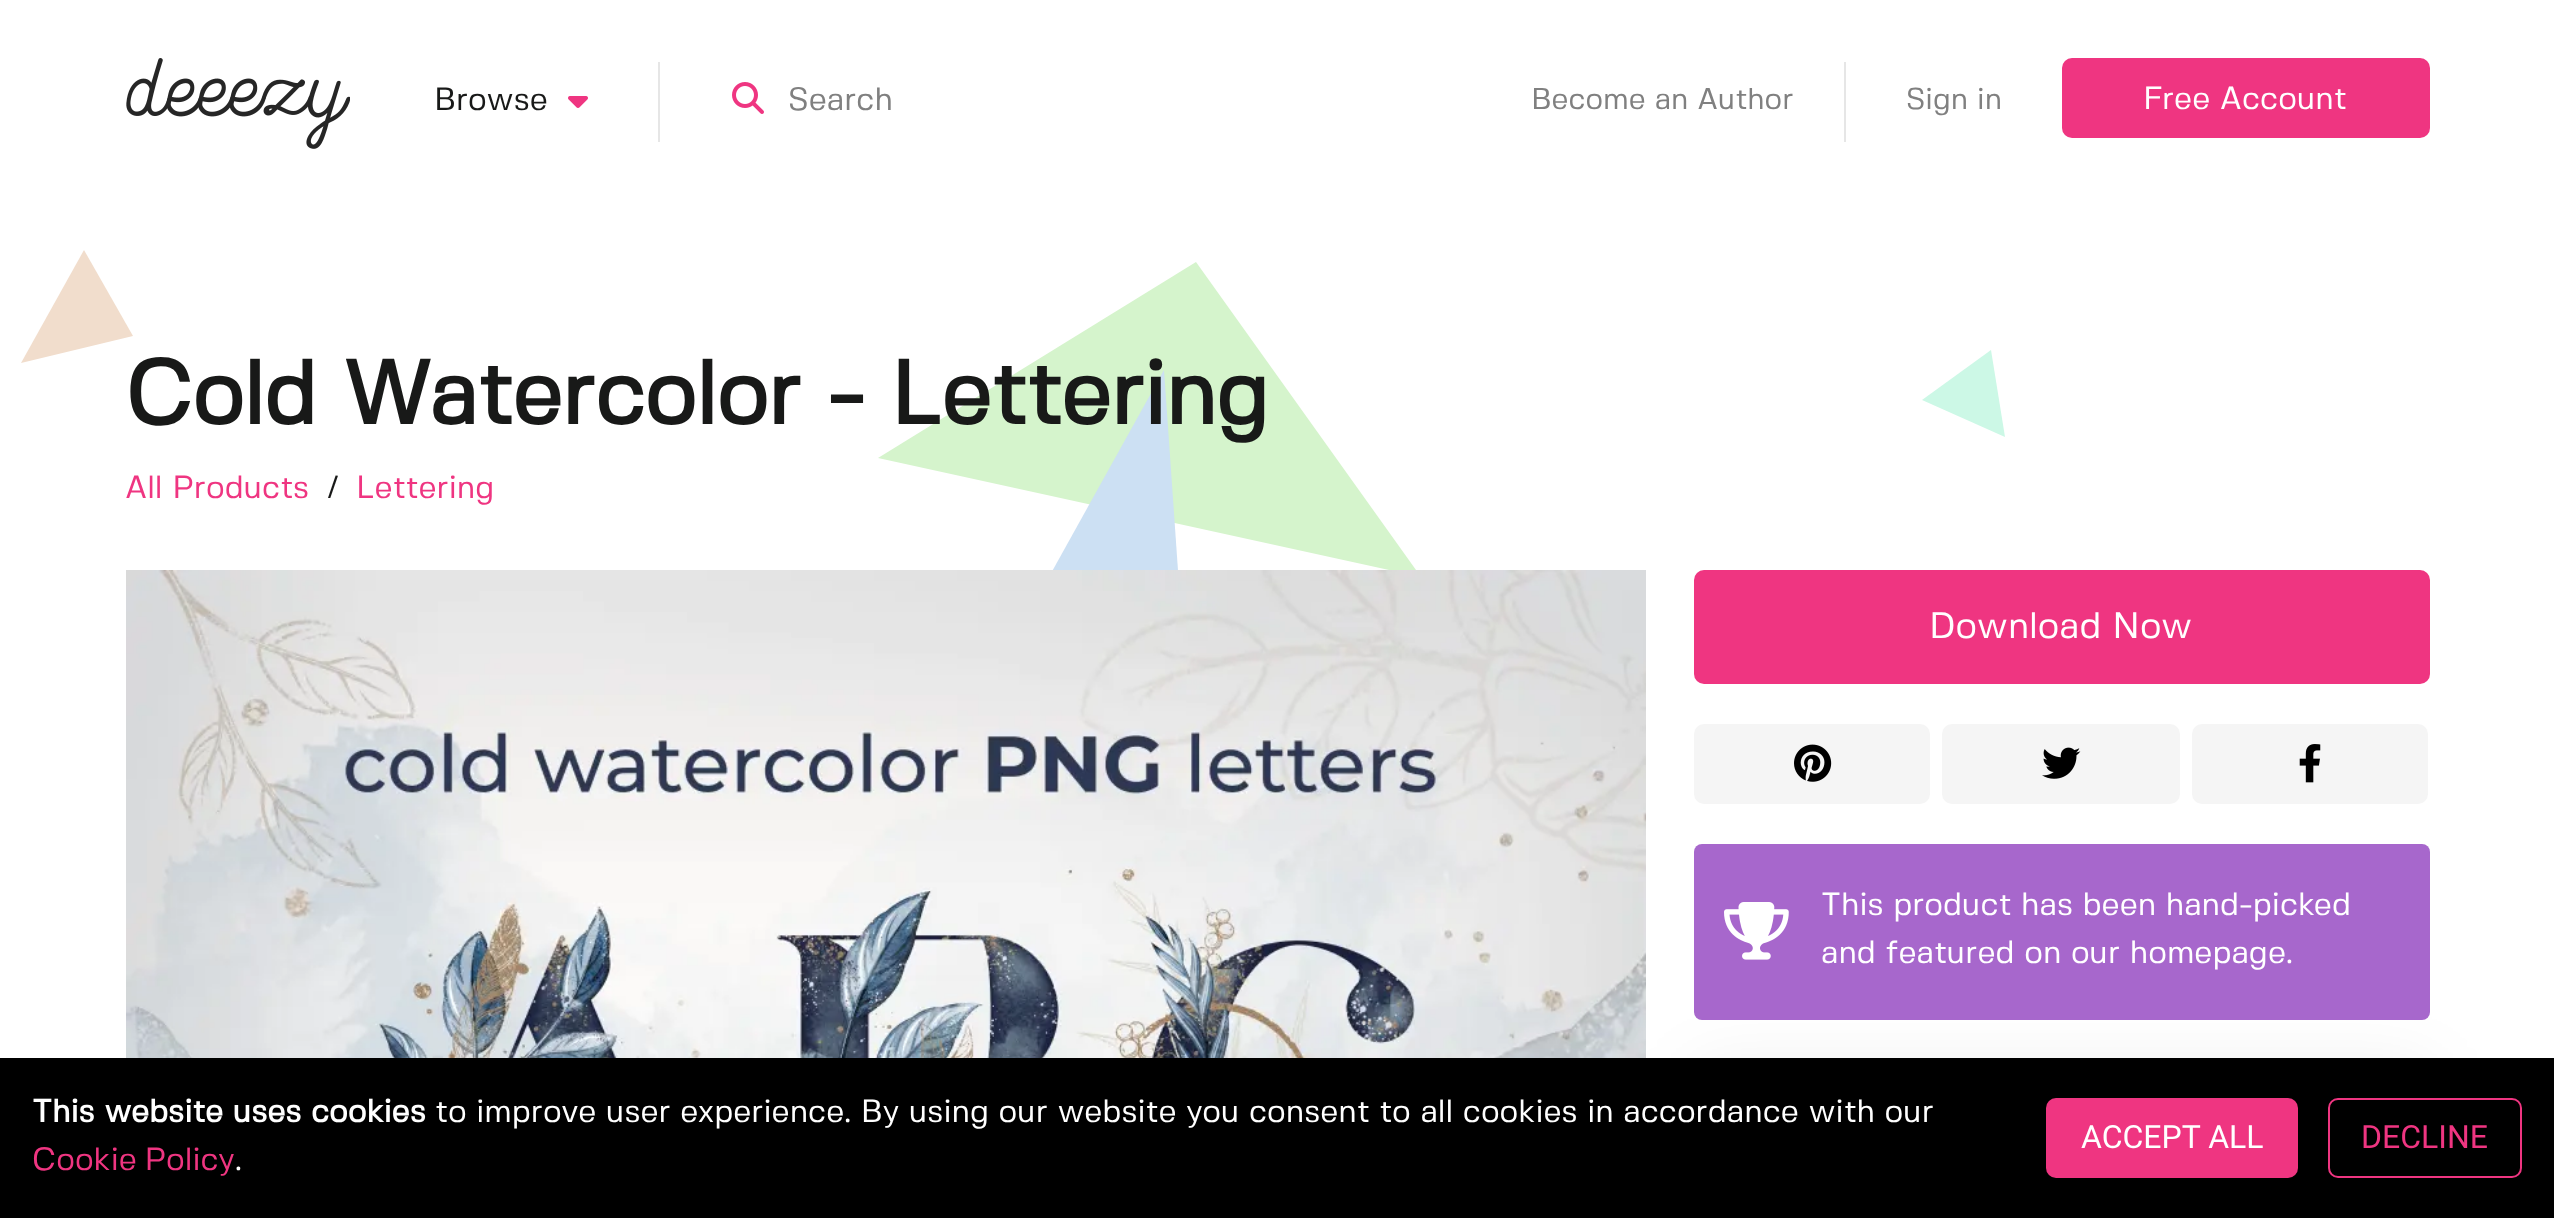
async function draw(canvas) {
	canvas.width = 2554;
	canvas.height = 1218;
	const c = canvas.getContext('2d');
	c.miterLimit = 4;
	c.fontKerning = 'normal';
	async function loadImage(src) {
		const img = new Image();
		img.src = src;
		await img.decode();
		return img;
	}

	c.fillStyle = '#fff';
	c.fillRect(0, 0, 2554, 1218);
	c.drawImage(await loadImage('img1.png'), 126, 58, 224, 91);
	c.font = '32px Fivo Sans';
	c.fillStyle = '#181918';
	c.fillText('Browse', 434, 110);
	c.drawImage(await loadImage('img2.png'), 568, 96, 20, 12);
	c.fillStyle = '#e6e6e6';
	c.fillRect(658, 62, 2, 80);
	c.drawImage(await loadImage('img3.png'), 732, 82, 32, 32);
	c.fillStyle = '#808080';
	c.fillText('Search', 788, 110);
	c.font = '30px Fivo Sans';
	c.fillText('Become an Author', 1531, 109);
	c.fillStyle = '#e6e6e6';
	c.fillRect(1844, 62, 2, 80);
	c.fillStyle = '#808080';
	c.fillText('Sign in', 1906, 109);
	c.fillStyle = '#ef3581';
	c.beginPath();
	c.roundRect(2062, 58, 368, 80, 10);
	c.fill();
	c.font = '32px Fivo Sans';
	c.fillStyle = '#fff';
	c.fillText('Free Account', 2143, 109);
	c.fillStyle = '#f1ddcc';
	c.beginPath();
	c.moveTo(21, 363);
	c.lineTo(84, 250);
	c.lineTo(133, 336);
	c.closePath();
	c.fill();
	c.fillStyle = '#d5f4cc';
	c.beginPath();
	c.moveTo(1421, 577);
	c.lineTo(878, 458);
	c.lineTo(1196, 262);
	c.closePath();
	c.fill();
	c.fillStyle = '#cce0f3';
	c.beginPath();
	c.moveTo(995, 674);
	c.lineTo(1164, 370);
	c.lineTo(1179, 585);
	c.closePath();
	c.fill();
	c.letterSpacing = '-1px';
	c.font = 'bold 89.6px Fivo Sans';
	c.fillStyle = '#181918';
	c.fillText('Cold Watercolor - Lettering', 125, 424);
	c.letterSpacing = '0px';
	c.font = '32px Fivo Sans';
	c.fillStyle = '#ef3581';
	c.fillText('All Products', 125, 498);
	c.fillStyle = '#181918';
	c.fillText('/', 327, 498);
	c.fillStyle = '#ef3581';
	c.fillText('Lettering', 356, 498);
	c.fillStyle = '#0a0a0a12';
	c.filter = 'blur(35px)';
	c.beginPath();
	c.roundRect(1694, 1070, 736, 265, 12);
	c.fill();
	c.filter = 'none';
	c.drawImage(await loadImage('img4.png'), 126, 570, 1520, 488);
	c.fillStyle = '#ef3581';
	c.beginPath();
	c.roundRect(1694, 570, 736, 114, 10);
	c.fill();
	c.font = '36.75px Fivo Sans';
	c.fillStyle = '#fff';
	c.fillText('Download Now', 1929, 638);
	c.fillStyle = '#f5f5f5';
	c.beginPath();
	c.roundRect(1694, 724, 236, 80, 10);
	c.fill();
	c.drawImage(await loadImage('img5.png'), 1794, 744, 38, 38);
	c.beginPath();
	c.roundRect(1942, 724, 238, 80, 10);
	c.fill();
	c.drawImage(await loadImage('img6.png'), 2042, 747, 39, 32);
	c.beginPath();
	c.roundRect(2192, 724, 236, 80, 10);
	c.fill();
	c.drawImage(await loadImage('img7.png'), 2299, 744, 22, 39);
	c.fillStyle = '#a767cc';
	c.beginPath();
	c.roundRect(1694, 844, 736, 176, 8);
	c.fill();
	c.drawImage(await loadImage('img8.png'), 1724, 902, 65, 58);
	c.font = '32px Fivo Sans';
	c.fillStyle = '#fff';
	c.fillText('This product has been hand-picked', 1821, 915);
	c.fillText('and featured on our homepage.', 1821, 963);
	c.fillStyle = '#000';
	c.fillRect(0, 1058, 2554, 160);
	c.font = 'bold 32px Fivo Sans';
	c.fillStyle = '#fff';
	c.fillText('This website uses cookies', 32, 1122);
	c.font = '32px Fivo Sans';
	c.fillText('to improve user experience. By using our website you consent to all cookies in accordance with our', 435, 1122);
	c.wordSpacing = '-2px';
	c.fillStyle = '#ef3581';
	c.fillText('Cookie Policy', 32, 1170);
	c.wordSpacing = '0px';
	c.fillStyle = '#fff';
	c.fillText('.', 235, 1170);
	c.fillStyle = '#ef3581';
	c.beginPath();
	c.roundRect(2046, 1098, 252, 80, 10);
	c.fill();
	c.font = '32px Roboto';
	c.fillStyle = '#fff';
	c.fillText('ACCEPT ALL', 2081, 1148);
	c.beginPath();
	c.roundRect(2329, 1099, 192, 78, 9);
	c.strokeStyle = '#ef3581';
	c.lineWidth = 2;
	c.stroke();
	c.fillStyle = '#ef3581';
	c.fillText('DECLINE', 2361, 1148);
	c.fillStyle = '#ccf8e6';
	c.beginPath();
	c.moveTo(2005, 437);
	c.lineTo(1922, 400);
	c.lineTo(1991, 350);
	c.closePath();
	c.fill();
}

draw(document.querySelector('canvas'));
